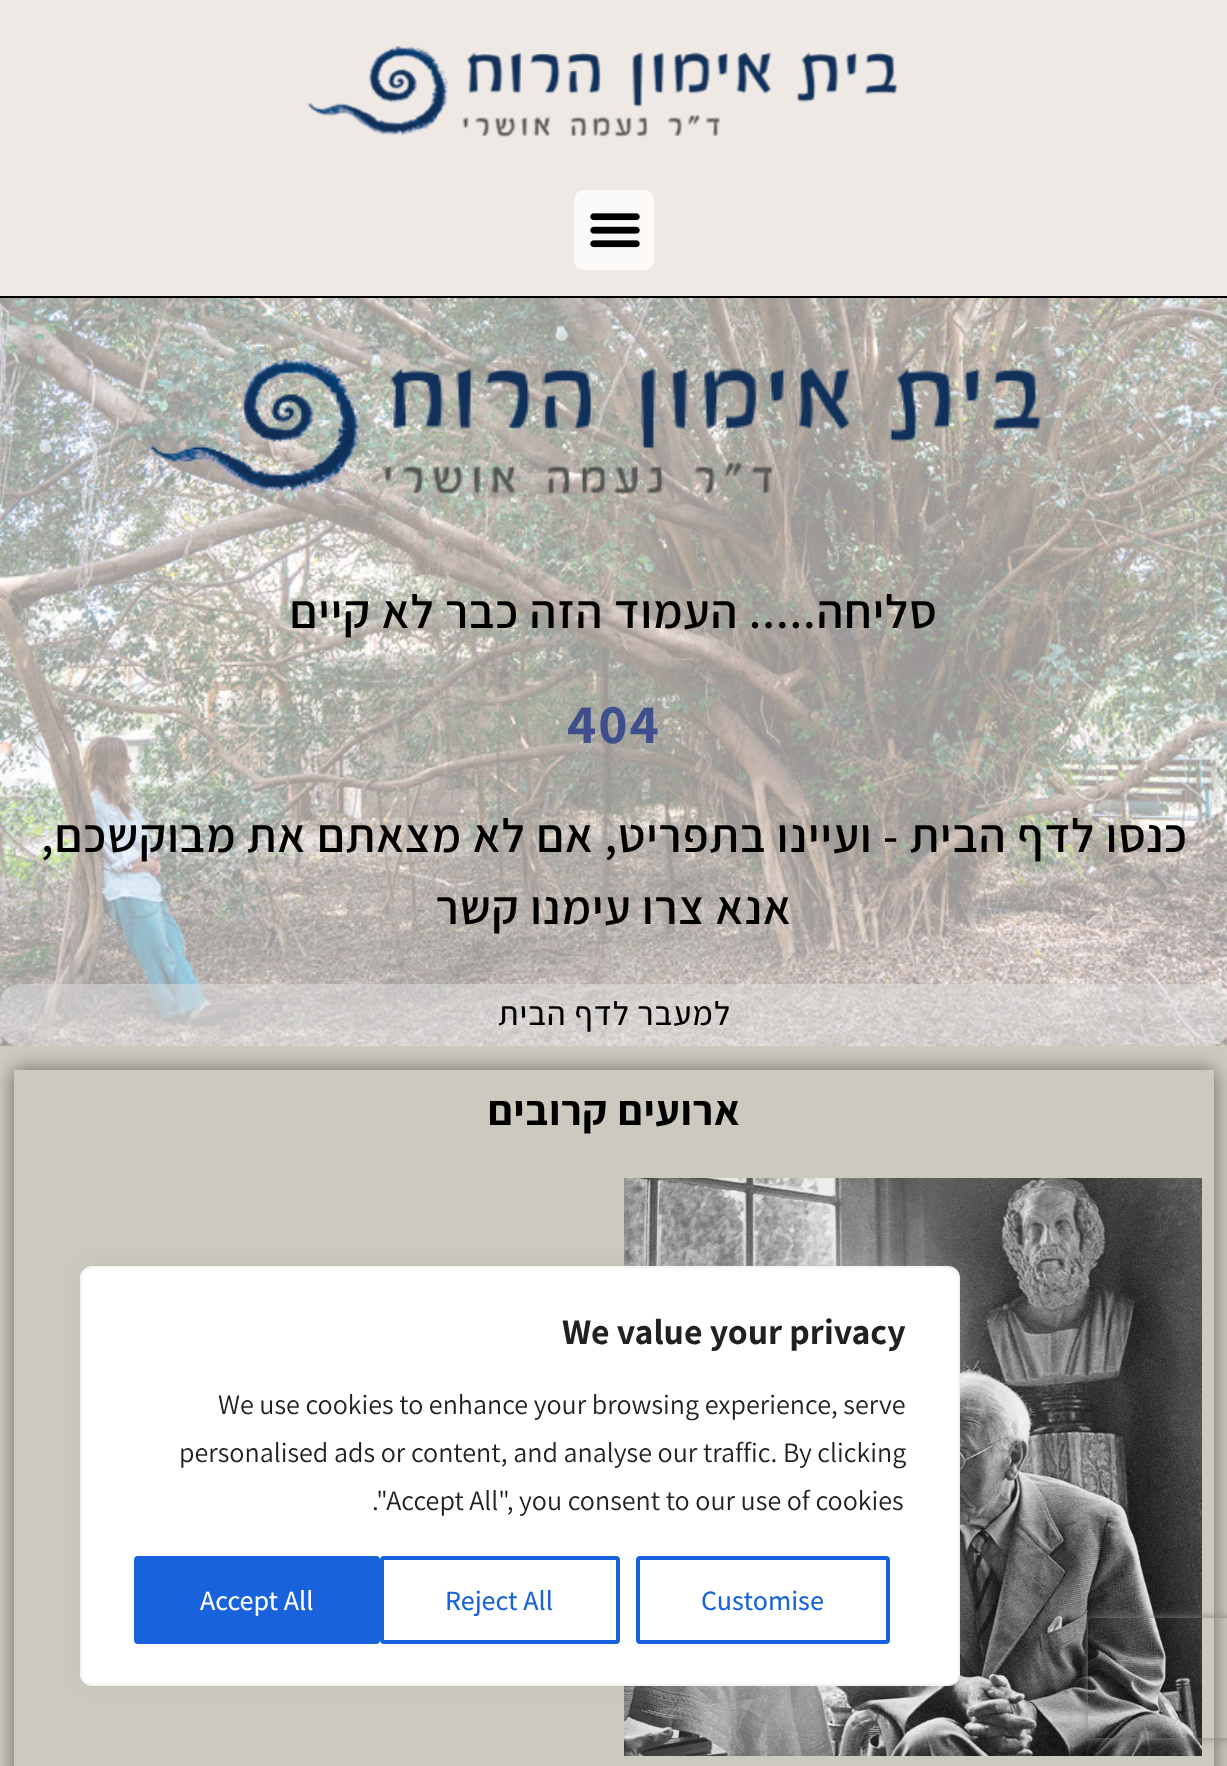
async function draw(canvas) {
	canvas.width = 1227;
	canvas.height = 1766;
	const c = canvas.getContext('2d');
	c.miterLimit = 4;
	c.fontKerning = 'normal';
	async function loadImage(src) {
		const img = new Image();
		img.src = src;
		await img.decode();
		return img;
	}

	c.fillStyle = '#fff';
	c.fillRect(0, 0, 1227, 1766);
	c.fillStyle = '#eee9e4';
	c.fillRect(0, 0, 1227, 296);
	c.fillStyle = '#000';
	c.fillRect(0, 296, 1227, 2);
	c.drawImage(await loadImage('img1.png'), 307, 45, 591, 93);
	c.fillStyle = '#fbfaf9';
	c.beginPath();
	c.roundRect(574, 190, 80, 80, 10);
	c.fill();
	c.drawImage(await loadImage('img2.png'), 590, 213, 50, 35);
	c.drawImage(await loadImage('img3.png'), 0, 298, 1227, 748);
	c.drawImage(await loadImage('img4.png'), 149, 356, 893, 139);
	c.letterSpacing = '1px';
	c.direction = 'rtl';
	c.font = '600 47.6px Assistant';
	c.fillStyle = '#000';
	c.fillText('סליחה..... העמוד הזה כבר לא קיים', 938, 628);
	c.letterSpacing = '2px';
	c.direction = 'ltr';
	c.font = 'bold 56px Assistant';
	c.fillStyle = '#3f4e8d';
	c.fillText('404', 567, 743);
	c.letterSpacing = '1px';
	c.direction = 'rtl';
	c.font = '600 47.6px Assistant';
	c.fillStyle = '#000';
	c.fillText('כנסו לדף הבית - ועיינו בתפריט, אם לא מצאתם את מבוקשכם,', 1188, 852);
	c.fillText('אנא צרו עימנו קשר', 792, 924);
	c.fillStyle = '#dddddd8c';
	c.beginPath();
	c.roundRect(0, 984, 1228, 62, 20);
	c.fill();
	c.font = '500 33.5px Assistant';
	c.fillStyle = '#000';
	c.fillText('למעבר לדף הבית', 731, 1025);
	c.fillStyle = '#ccc9bf';
	c.fillRect(0, 1046, 1227, 720);
	c.save();
	c.beginPath();
	c.moveTo(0, 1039);
	c.lineTo(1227, 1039);
	c.lineTo(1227, 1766);
	c.lineTo(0, 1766);
	c.closePath();
	c.moveTo(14, 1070);
	c.lineTo(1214, 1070);
	c.lineTo(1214, 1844);
	c.lineTo(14, 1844);
	c.closePath();
	c.clip('evenodd');
	c.fillStyle = '#00000080';
	c.filter = 'blur(10px)';
	c.beginPath();
	c.rect(14, 1070, 1200, 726);
	c.fill();
	c.filter = 'none';
	c.restore();
	c.font = 'bold 42px Assistant';
	c.fillStyle = '#000';
	c.fillText('ארועים קרובים', 741, 1125);
	c.drawImage(await loadImage('img5.png'), 624, 1178, 578, 578);
	c.save();
	c.beginPath();
	c.moveTo(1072, 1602);
	c.lineTo(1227, 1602);
	c.lineTo(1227, 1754);
	c.lineTo(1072, 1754);
	c.closePath();
	c.moveTo(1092, 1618);
	c.lineTo(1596, 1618);
	c.bezierCurveTo(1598, 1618, 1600, 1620, 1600, 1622);
	c.lineTo(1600, 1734);
	c.bezierCurveTo(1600, 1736, 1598, 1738, 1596, 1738);
	c.lineTo(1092, 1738);
	c.bezierCurveTo(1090, 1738, 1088, 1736, 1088, 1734);
	c.lineTo(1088, 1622);
	c.bezierCurveTo(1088, 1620, 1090, 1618, 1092, 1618);
	c.closePath();
	c.clip('evenodd');
	c.fillStyle = '#808080';
	c.filter = 'blur(5px)';
	c.beginPath();
	c.roundRect(1088, 1618, 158, 120, 4);
	c.fill();
	c.filter = 'none';
	c.restore();
	c.fillStyle = '#acabab4d';
	c.filter = 'blur(10px)';
	c.beginPath();
	c.roundRect(80, 1264, 880, 420, 12);
	c.fill();
	c.filter = 'none';
	c.fillStyle = '#fff';
	c.beginPath();
	c.roundRect(81, 1267, 878, 418, 11);
	c.fill();
	c.strokeStyle = '#f4f4f4';
	c.lineWidth = 2;
	c.stroke();
	c.letterSpacing = '0px';
	c.direction = 'ltr';
	c.font = 'bold 36px Assistant';
	c.fillStyle = '#212121';
	c.fillText('We value your privacy', 562, 1344);
	c.font = '28px Assistant';
	for (const [text, x, y] of [
		['We use cookies to enhance your browsing experience, serve', 218, 1414],
		['personalised ads or content, and analyse our traffic. By clicking', 179, 1462],
		['."Accept All", you consent to our use of cookies', 372, 1510],
	]) {
		c.fillText(text, x, y);
	}
	c.fillStyle = '#1863dc';
	c.beginPath();
	c.roundRect(136, 1558, 242, 84, 2);
	c.fill();
	c.strokeStyle = '#1863dc';
	c.lineWidth = 4;
	c.stroke();
	c.font = '500 28px Assistant';
	c.fillStyle = '#fff';
	c.fillText('Accept All', 200, 1610);
	c.beginPath();
	c.roundRect(382, 1558, 236, 84, 2);
	c.stroke();
	c.fillStyle = '#1863dc';
	c.fillText('Reject All', 445, 1610);
	c.beginPath();
	c.roundRect(638, 1558, 250, 84, 2);
	c.stroke();
	c.fillText('Customise', 701, 1610);
}

draw(document.querySelector('canvas'));
